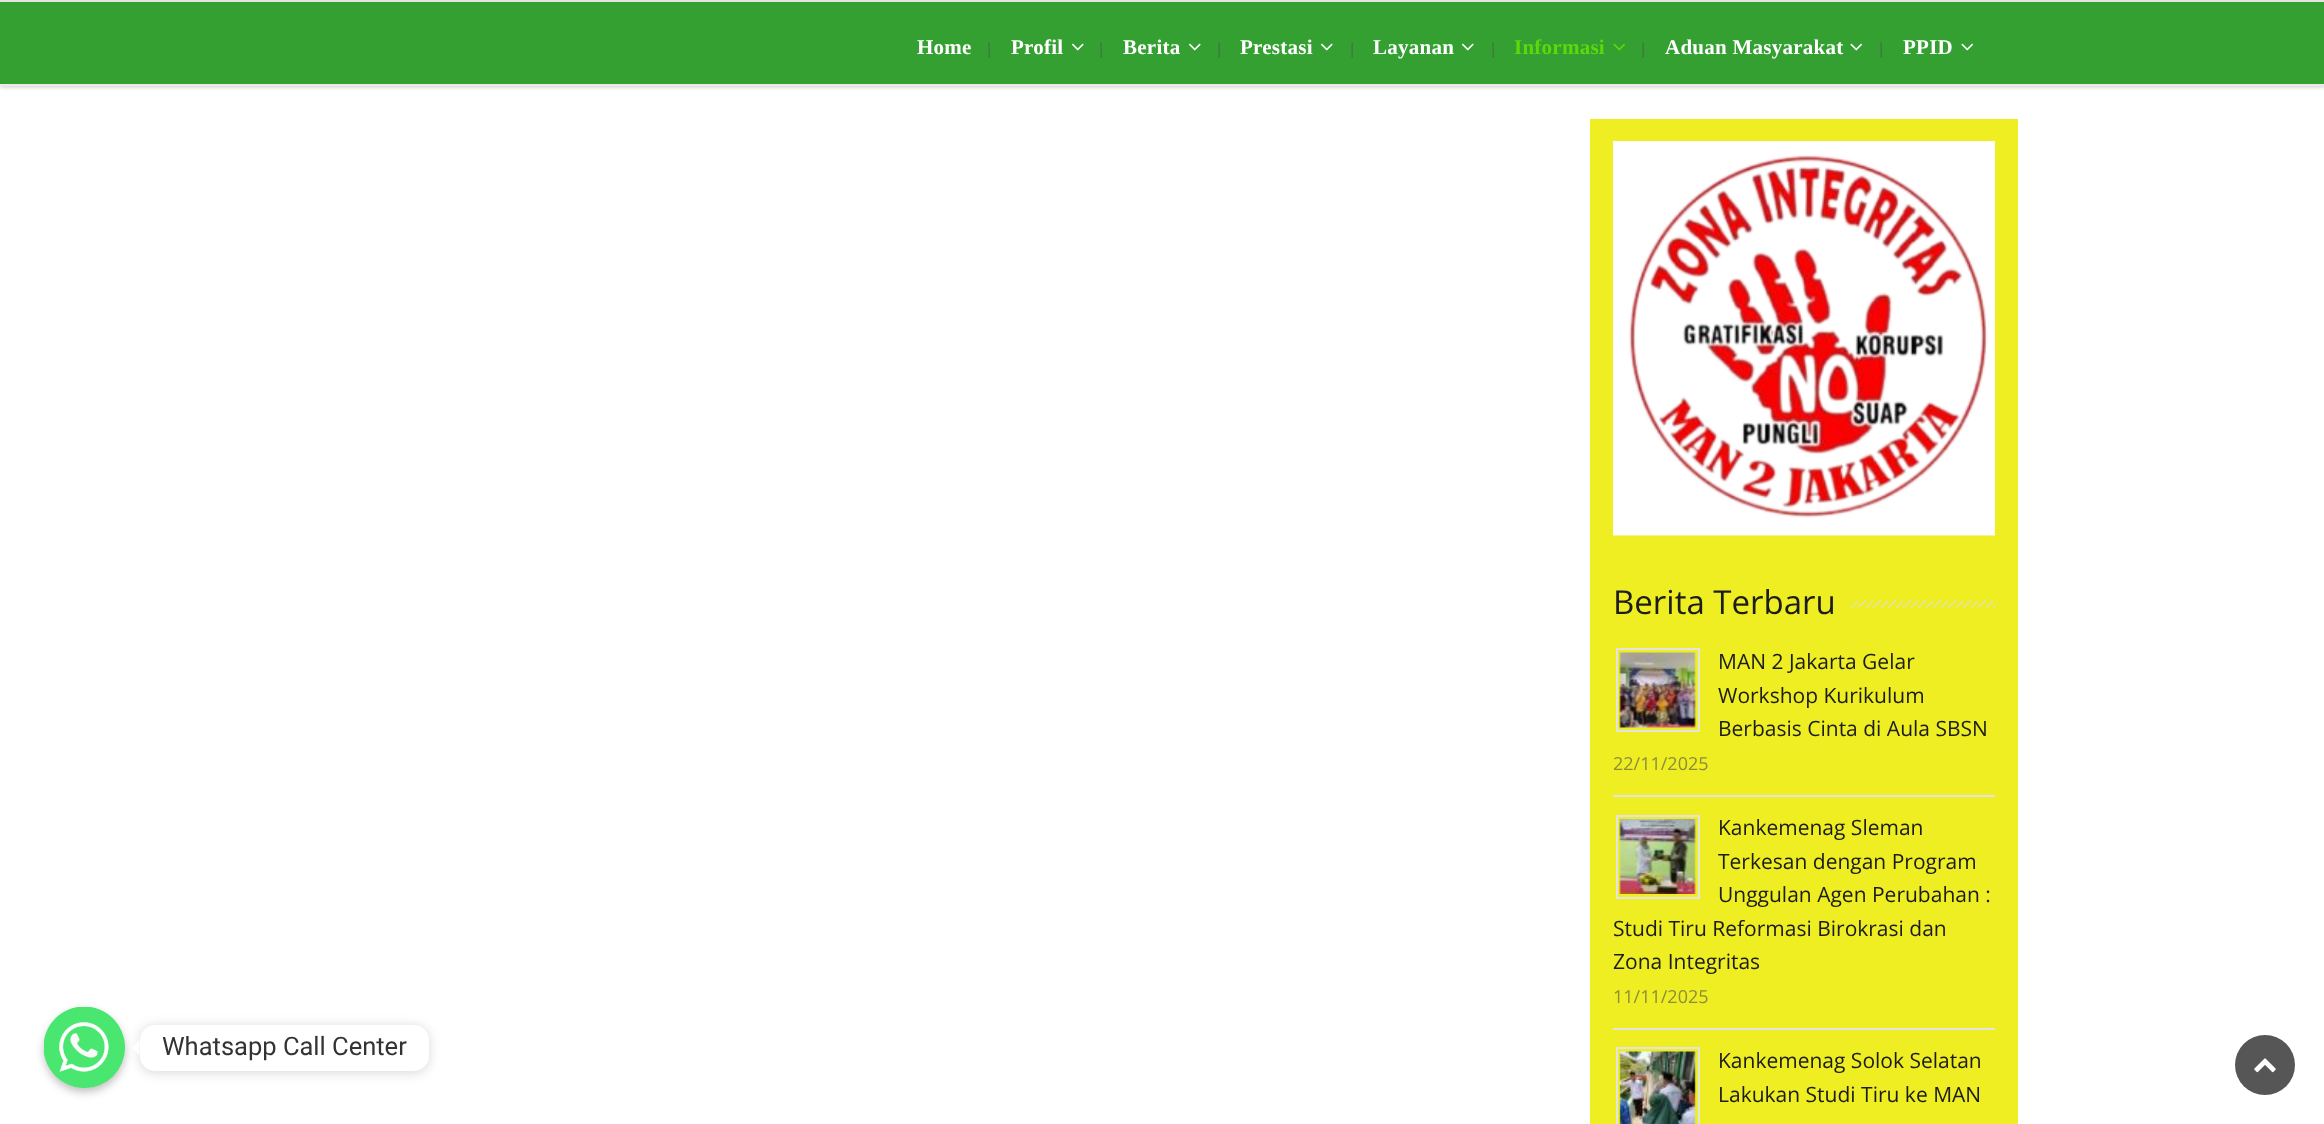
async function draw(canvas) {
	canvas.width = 2324;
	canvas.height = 1124;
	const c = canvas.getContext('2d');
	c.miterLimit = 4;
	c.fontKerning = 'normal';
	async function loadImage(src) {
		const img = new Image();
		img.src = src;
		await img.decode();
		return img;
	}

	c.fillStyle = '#fff';
	c.fillRect(0, 0, 2324, 1124);
	c.fillStyle = '#00000040';
	c.filter = 'blur(4.5px)';
	c.beginPath();
	c.roundRect(44, 1011, 81, 81, 40.5);
	c.fill();
	c.filter = 'none';
	c.fillStyle = '#49e670';
	c.beginPath();
	c.arc(84.5, 1047.5, 40.5, 0, 2 * Math.PI);
	c.fill();
	c.drawImage(await loadImage('img1.png'), 44, 1007, 81, 81);
	c.fillStyle = '#00000026';
	c.filter = 'blur(6px)';
	c.beginPath();
	c.roundRect(140, 1026, 289, 47, 15);
	c.fill();
	c.filter = 'none';
	c.fillStyle = '#fff';
	c.beginPath();
	c.roundRect(140, 1025, 289, 46, 15);
	c.fill();
	c.beginPath();
	c.moveTo(139.5, 1040);
	c.lineTo(139.5, 1055);
	c.lineTo(132, 1048);
	c.closePath();
	c.fill();
	c.font = '25.5px Roboto';
	c.fillStyle = '#333';
	c.fillText('Whatsapp Call Center', 162, 1055);
	c.fillStyle = '#00000033';
	c.filter = 'blur(2px)';
	c.beginPath();
	c.rect(0, 2, 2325, 85);
	c.fill();
	c.filter = 'none';
	for (const [x, y, w, h, color] of [
		[0, 2, 2324, 82, '#33a031'],
		[0, 0, 2324, 2, '#e3e3e3'],
		[0, 84, 2324, 2, '#eaeaea'],
	]) {
		c.fillStyle = color;
		c.fillRect(x, y, w, h);
	}
	c.letterSpacing = '0.25px';
	c.font = 'bold 21px Liberation Serif';
	c.fillStyle = '#fff';
	c.fillText('Home', 917, 54);
	c.letterSpacing = '0px';
	c.font = '15px Open Sans';
	c.fillStyle = '#426e41';
	c.fillText('|', 985, 54);
	c.letterSpacing = '0.25px';
	c.font = 'bold 21px Liberation Serif';
	c.fillStyle = '#fff';
	c.fillText('Profil', 1011, 54);
	c.drawImage(await loadImage('img2.png'), 1071, 43, 13, 8);
	c.letterSpacing = '0px';
	c.font = '15px Open Sans';
	c.fillStyle = '#426e41';
	c.fillText('|', 1097, 54);
	c.letterSpacing = '0.25px';
	c.font = 'bold 21px Liberation Serif';
	c.fillStyle = '#fff';
	c.fillText('Berita', 1123, 54);
	c.drawImage(await loadImage('img2.png'), 1188, 43, 13, 8);
	c.letterSpacing = '0px';
	c.font = '15px Open Sans';
	c.fillStyle = '#426e41';
	c.fillText('|', 1215, 54);
	c.letterSpacing = '0.25px';
	c.font = 'bold 21px Liberation Serif';
	c.fillStyle = '#fff';
	c.fillText('Prestasi', 1240, 54);
	c.drawImage(await loadImage('img2.png'), 1320, 43, 13, 8);
	c.letterSpacing = '0px';
	c.font = '15px Open Sans';
	c.fillStyle = '#426e41';
	c.fillText('|', 1348, 54);
	c.letterSpacing = '0.25px';
	c.font = 'bold 21px Liberation Serif';
	c.fillStyle = '#fff';
	c.fillText('Layanan', 1373, 54);
	c.drawImage(await loadImage('img2.png'), 1461, 43, 13, 8);
	c.letterSpacing = '0px';
	c.font = '15px Open Sans';
	c.fillStyle = '#426e41';
	c.fillText('|', 1489, 54);
	c.letterSpacing = '0.25px';
	c.font = 'bold 21px Liberation Serif';
	c.fillStyle = '#60d60c';
	c.fillText('Informasi', 1514, 54);
	c.drawImage(await loadImage('img3.png'), 1613, 43, 12, 8);
	c.letterSpacing = '0px';
	c.font = '15px Open Sans';
	c.fillStyle = '#426e41';
	c.fillText('|', 1639, 54);
	c.letterSpacing = '0.25px';
	c.font = 'bold 21px Liberation Serif';
	c.fillStyle = '#fff';
	c.fillText('Aduan Masyarakat', 1665, 54);
	c.drawImage(await loadImage('img4.png'), 1850, 43, 13, 8);
	c.letterSpacing = '0px';
	c.font = '15px Open Sans';
	c.fillStyle = '#426e41';
	c.fillText('|', 1877, 54);
	c.letterSpacing = '0.25px';
	c.font = 'bold 21px Liberation Serif';
	c.fillStyle = '#fff';
	c.fillText('PPID', 1903, 54);
	c.drawImage(await loadImage('img4.png'), 1961, 43, 13, 8);
	c.fillStyle = '#ee2';
	c.fillRect(1590, 119, 428, 1005);
	c.drawImage(await loadImage('img5.png'), 1613, 141, 382, 395);
	c.letterSpacing = '0px';
	c.font = '33px Open Sans';
	c.fillStyle = '#1c1c1c';
	c.fillText('Berita Terbaru', 1613, 614);
	c.drawImage(await loadImage('img6.png'), 1851, 600, 144, 8);
	c.fillStyle = '#e3e3e3';
	c.fillRect(1613, 795, 382, 2);
	c.strokeStyle = '#e3e3e3';
	c.lineWidth = 2;
	c.strokeRect(1617, 649, 82, 82);
	c.drawImage(await loadImage('img7.png'), 1619, 652, 77, 76);
	c.font = '21px Open Sans';
	c.fillStyle = '#1c1c1c';
	for (const [text, x, y] of [
		['MAN 2 Jakarta Gelar', 1718, 669],
		['Workshop Kurikulum', 1718, 703],
		['Berbasis Cinta di Aula SBSN', 1718, 736],
	]) {
		c.fillText(text, x, y);
	}
	c.font = '18px Open Sans';
	c.fillStyle = '#8d8d3b';
	c.fillText('22/11/2025', 1613, 770);
	c.fillStyle = '#e3e3e3';
	c.fillRect(1613, 1028, 382, 2);
	c.strokeRect(1617, 816, 82, 82);
	c.drawImage(await loadImage('img8.png'), 1619, 819, 77, 75);
	c.font = '21px Open Sans';
	c.fillStyle = '#1c1c1c';
	for (const [text, x, y] of [
		['Kankemenag Sleman', 1718, 835],
		['Terkesan dengan Program', 1718, 869],
		['Unggulan Agen Perubahan :', 1718, 902],
		['Studi Tiru Reformasi Birokrasi dan', 1613, 936],
		['Zona Integritas', 1613, 969],
	]) {
		c.fillText(text, x, y);
	}
	c.font = '18px Open Sans';
	c.fillStyle = '#8d8d3b';
	c.fillText('11/11/2025', 1613, 1003);
	c.strokeRect(1617, 1048, 82, 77);
	c.drawImage(await loadImage('img9.png'), 1619, 1051, 77, 73);
	c.font = '21px Open Sans';
	c.fillStyle = '#1c1c1c';
	c.fillText('Kankemenag Solok Selatan', 1718, 1068);
	c.fillText('Lakukan Studi Tiru ke MAN', 1718, 1102);
	c.fillStyle = '#565656';
	c.beginPath();
	c.arc(2265, 1065, 30, 0, 2 * Math.PI);
	c.fill();
	c.drawImage(await loadImage('img10.png'), 2254, 1058, 22, 15);
}

draw(document.querySelector('canvas'));
